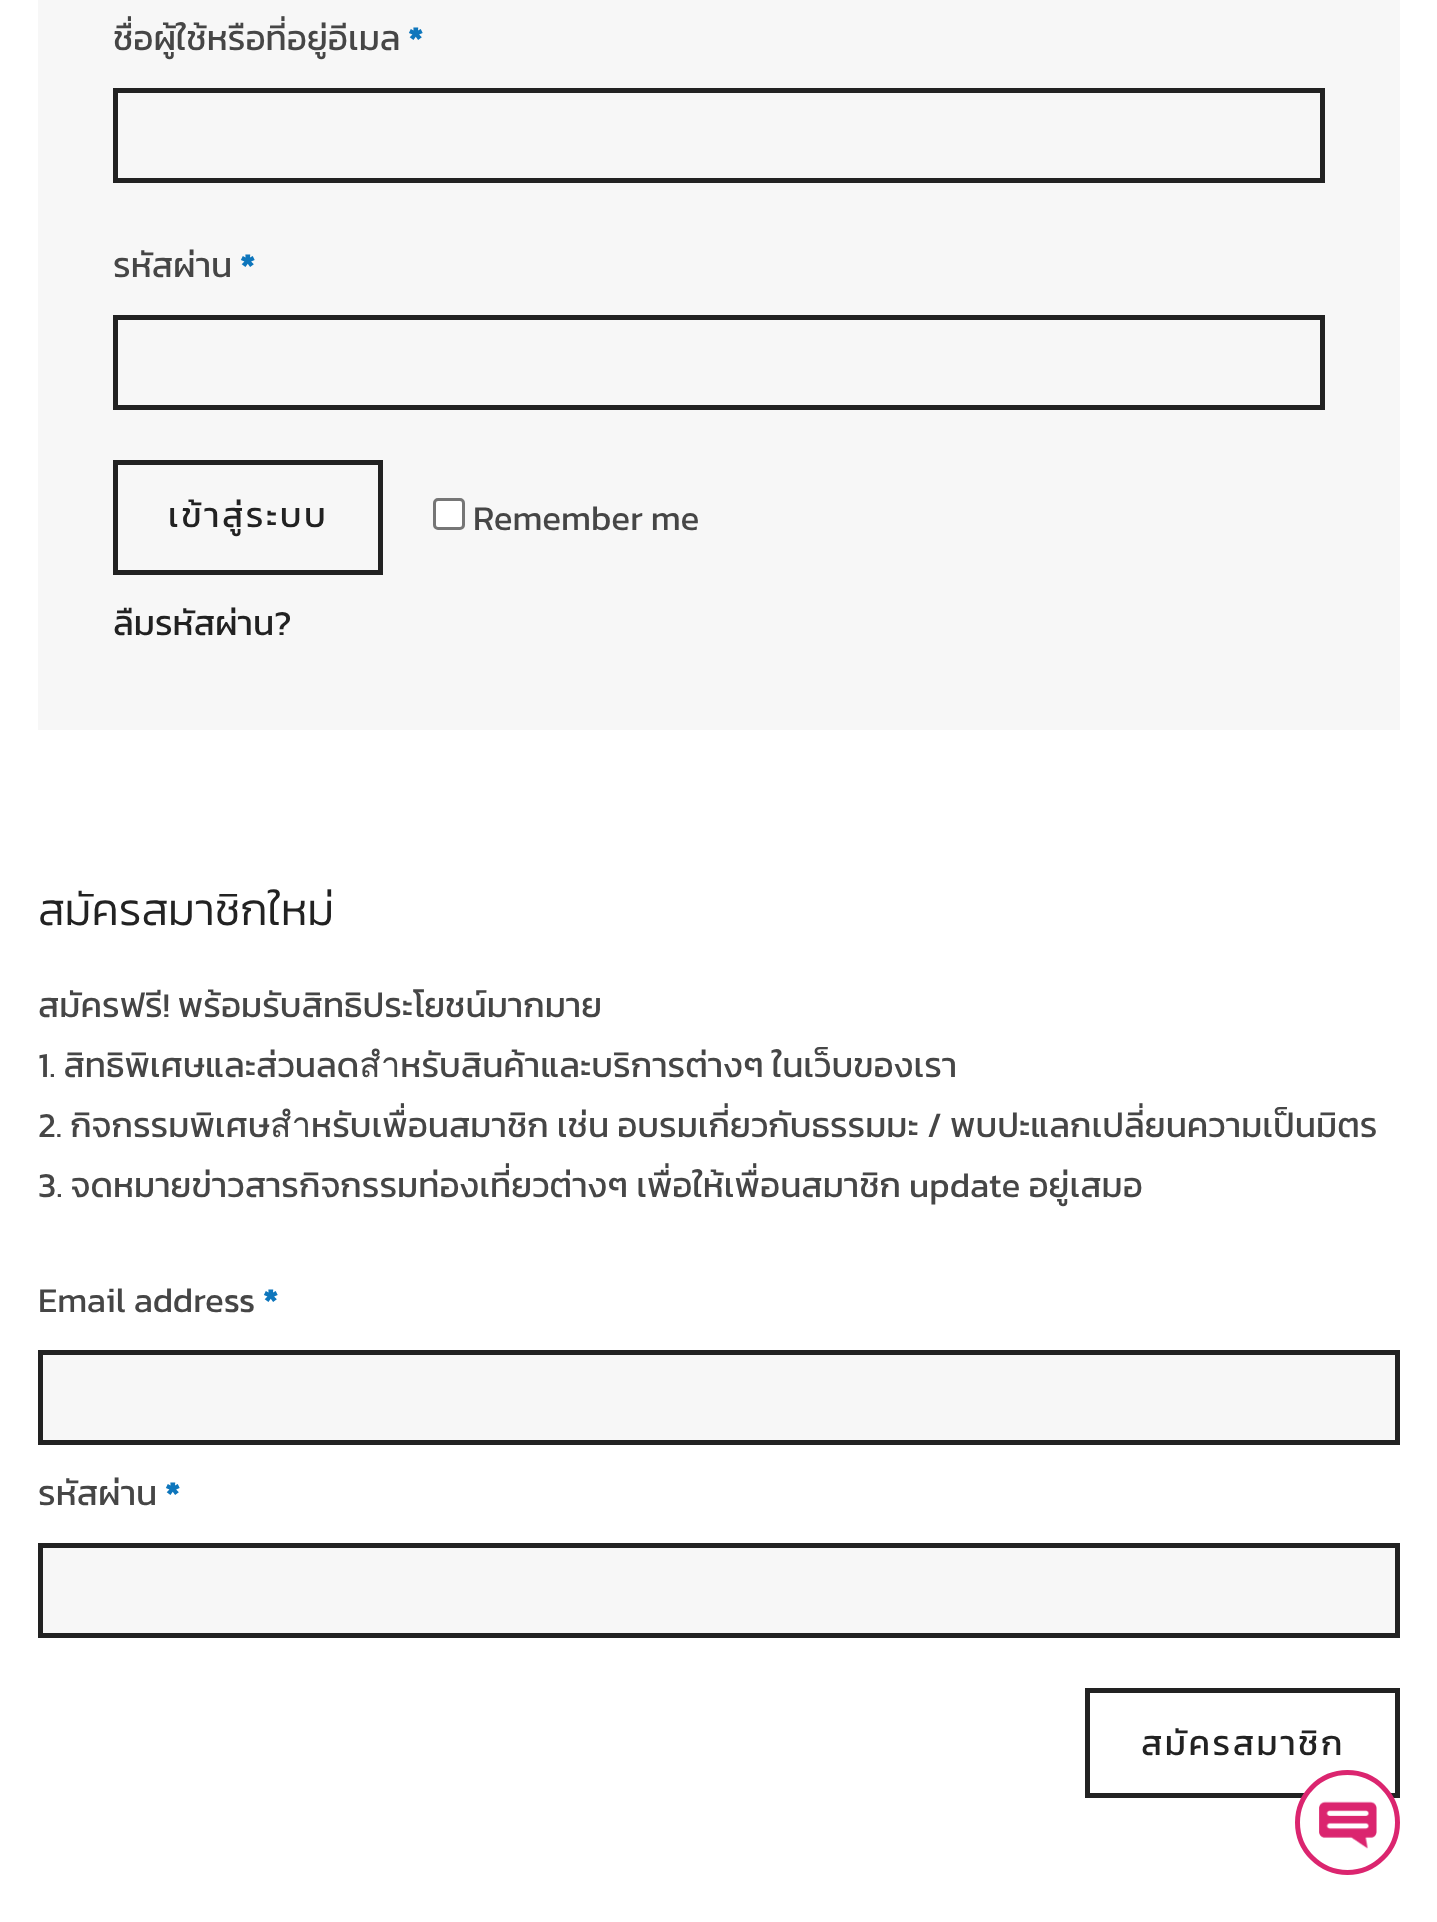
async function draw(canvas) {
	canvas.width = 1437;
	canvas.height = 1922;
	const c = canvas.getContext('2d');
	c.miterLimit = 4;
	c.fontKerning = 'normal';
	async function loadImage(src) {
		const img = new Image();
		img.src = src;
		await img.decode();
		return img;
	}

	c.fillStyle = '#fff';
	c.fillRect(0, 0, 1437, 1922);
	c.fillStyle = '#f7f7f7';
	c.fillRect(38, 0, 1362, 730);
	c.font = '35px Kanit';
	c.fillStyle = '#464646';
	c.fillText('ชื่อผู้ใช้หรือที่อยู่อีเมล', 113, 50);
	c.font = 'bold 35px Kanit';
	c.fillStyle = '#0e76bc';
	c.fillText('*', 408, 50);
	c.strokeStyle = '#222';
	c.lineWidth = 5;
	c.strokeRect(115.5, 90.5, 1207, 90);
	c.font = '35px Kanit';
	c.fillStyle = '#464646';
	c.fillText('รหัสผ่าน', 113, 277);
	c.font = 'bold 35px Kanit';
	c.fillStyle = '#0e76bc';
	c.fillText('*', 240, 277);
	c.strokeRect(115.5, 317.5, 1207, 90);
	c.strokeRect(115.5, 462.5, 265, 110);
	c.letterSpacing = '2.5px';
	c.font = '35px Kanit';
	c.fillStyle = '#222';
	c.fillText('เข้าสู่ระบบ', 168, 527);
	c.fillStyle = '#fff';
	c.beginPath();
	c.roundRect(434.5, 499.5, 29, 29, 3.5);
	c.fill();
	c.strokeStyle = '#767676';
	c.lineWidth = 3;
	c.stroke();
	c.letterSpacing = '0px';
	c.fillStyle = '#464646';
	c.fillText('Remember me', 473, 530);
	c.fillStyle = '#222';
	c.fillText('ลืมรหัสผ่าน?', 113, 635);
	c.font = '300 45px Kanit';
	c.fillText('สมัครสมาชิกใหม่', 38, 925);
	c.font = '35px Kanit';
	c.fillStyle = '#464646';
	for (const [text, x, y] of [
		['สมัครฟรี! พร้อมรับสิทธิประโยชน์มากมาย', 38, 1017],
		['1. สิทธิพิเศษและส่วนลดสำหรับสินค้าและบริการต่างๆ ในเว็บของเรา', 38, 1077],
		['2. กิจกรรมพิเศษสำหรับเพื่อนสมาชิก เช่น อบรมเกี่ยวกับธรรมมะ / พบปะแลกเปลี่ยนความเป็นมิตร', 38, 1137],
		['3. จดหมายข่าวสารกิจกรรมท่องเที่ยวต่างๆ เพื่อให้เพื่อนสมาชิก update อยู่เสมอ', 38, 1197],
		['Email address', 38, 1312],
	]) {
		c.fillText(text, x, y);
	}
	c.font = 'bold 35px Kanit';
	c.fillStyle = '#0e76bc';
	c.fillText('*', 263, 1312);
	c.fillStyle = '#f7f7f7';
	c.beginPath();
	c.rect(40.5, 1352.5, 1357, 90);
	c.fill();
	c.strokeStyle = '#222';
	c.lineWidth = 5;
	c.stroke();
	c.font = '35px Kanit';
	c.fillStyle = '#464646';
	c.fillText('รหัสผ่าน', 38, 1505);
	c.font = 'bold 35px Kanit';
	c.fillStyle = '#0e76bc';
	c.fillText('*', 165, 1505);
	c.fillStyle = '#f7f7f7';
	c.beginPath();
	c.rect(40.5, 1545.5, 1357, 90);
	c.fill();
	c.stroke();
	c.strokeRect(1087.5, 1690.5, 310, 105);
	c.letterSpacing = '2.5px';
	c.font = '35px Kanit';
	c.fillStyle = '#222';
	c.fillText('สมัครสมาชิก', 1141, 1755);
	c.fillStyle = '#fff';
	c.beginPath();
	c.arc(1347.5, 1822.5, 50, 0, 2 * Math.PI);
	c.fill();
	c.strokeStyle = '#db256f';
	c.stroke();
	c.drawImage(await loadImage('img1.png'), 1319, 1801, 58, 48);
}

draw(document.querySelector('canvas'));
